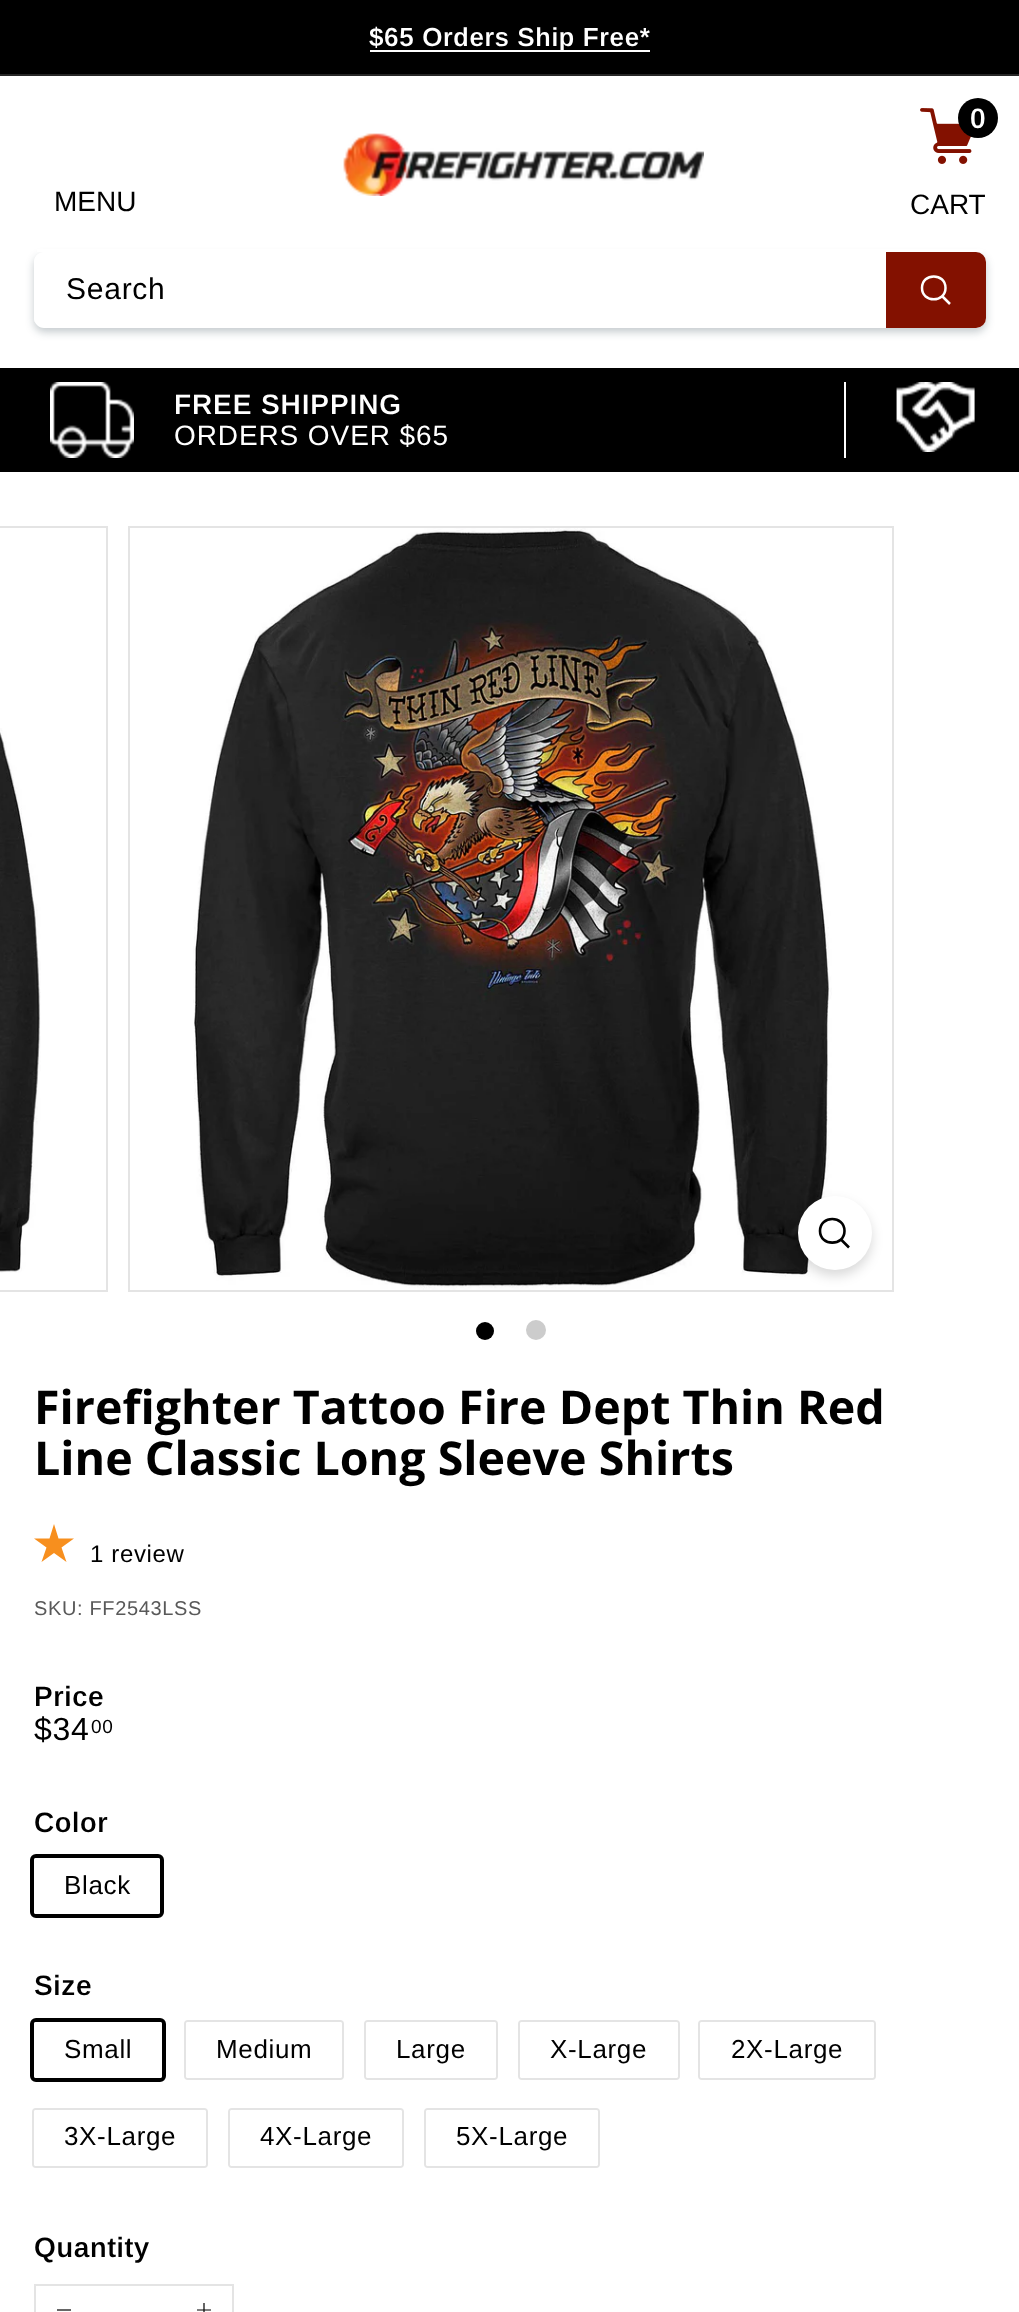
async function draw(canvas) {
	canvas.width = 1019;
	canvas.height = 2312;
	const c = canvas.getContext('2d');
	c.miterLimit = 4;
	c.fontKerning = 'normal';
	async function loadImage(src) {
		const img = new Image();
		img.src = src;
		await img.decode();
		return img;
	}

	c.fillStyle = '#fff';
	c.fillRect(0, 0, 1019, 2312);
	c.fillStyle = '#000';
	c.fillRect(0, 0, 1019, 74);
	c.fillStyle = '#fff';
	c.fillRect(370, 50, 280, 2);
	c.letterSpacing = '0.65px';
	c.font = '600 26px Arimo';
	c.fillText('$65 Orders Ship Free*', 369, 46);
	c.fillStyle = '#262626';
	c.fillRect(0, 74, 1019, 2);
	c.save();
	c.beginPath();
	c.moveTo(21, 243);
	c.lineTo(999, 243);
	c.lineTo(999, 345);
	c.lineTo(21, 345);
	c.closePath();
	c.moveTo(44, 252);
	c.lineTo(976, 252);
	c.bezierCurveTo(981.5, 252, 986, 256.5, 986, 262);
	c.lineTo(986, 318);
	c.bezierCurveTo(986, 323.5, 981.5, 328, 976, 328);
	c.lineTo(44, 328);
	c.bezierCurveTo(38.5, 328, 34, 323.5, 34, 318);
	c.lineTo(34, 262);
	c.bezierCurveTo(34, 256.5, 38.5, 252, 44, 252);
	c.closePath();
	c.clip('evenodd');
	c.fillStyle = '#0823303d';
	c.filter = 'blur(4px)';
	c.beginPath();
	c.roundRect(34, 256, 952, 76, 10);
	c.fill();
	c.filter = 'none';
	c.restore();
	c.fillStyle = '#fff';
	c.fillRect(37, 249, 946, 3);
	c.drawImage(await loadImage('img1.png'), 343, 133, 361, 63);
	c.drawImage(await loadImage('img2.png'), 920, 108, 52, 56);
	c.fillStyle = '#000';
	c.beginPath();
	c.arc(978, 118, 20, 0, 2 * Math.PI);
	c.fill();
	c.letterSpacing = '0px';
	c.font = '600 28px Arimo';
	c.fillStyle = '#fff';
	c.fillText('0', 970, 128);
	c.font = '28px Arimo';
	c.fillStyle = '#000';
	c.fillText('CART', 910, 214);
	c.fillText('MENU', 54, 211);
	c.save();
	c.beginPath();
	c.roundRect(34, 252, 952, 76, 10);
	c.clip();
	c.fillStyle = '#fff';
	c.fillRect(34, 254, 952, 68);
	c.restore();
	c.letterSpacing = '0.75px';
	c.font = '30px Arimo';
	c.fillText('Search', 66, 299);
	c.fillStyle = '#831100';
	c.beginPath();
	c.roundRect(886, 252, 100, 76, [0, 10, 10, 0]);
	c.fill();
	c.beginPath();
	c.moveTo(945.5, 288);
	c.bezierCurveTo(945.5, 303, 922, 303, 922, 288);
	c.bezierCurveTo(922, 272.5, 945.5, 272.5, 945.5, 288);
	c.moveTo(950, 304);
	c.lineTo(942, 296);
	c.strokeStyle = '#fff';
	c.lineWidth = 2.5;
	c.stroke();
	c.fillStyle = '#000';
	c.fillRect(0, 368, 1019, 104);
	c.drawImage(await loadImage('img3.png'), 50, 382, 84, 76);
	c.letterSpacing = '0.9px';
	c.font = '600 28px Arimo';
	c.fillStyle = '#fff';
	c.fillText('FREE SHIPPING', 174, 414);
	c.font = '28px Arimo';
	c.fillText('ORDERS OVER $65', 174, 445);
	c.fillRect(844, 382, 2, 76);
	c.drawImage(await loadImage('img4.png'), 896, 382, 79, 70);
	c.strokeStyle = '#e4e4e4';
	c.lineWidth = 2;
	c.strokeRect(-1, 527, 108, 764);
	c.drawImage(await loadImage('img5.png'), 0, 728, 41, 545);
	c.strokeRect(129, 527, 764, 764);
	c.drawImage(await loadImage('img6.png'), 193, 528, 639, 762);
	c.fillStyle = '#00000026';
	c.filter = 'blur(6px)';
	c.beginPath();
	c.roundRect(798, 1202, 74, 74, 37);
	c.fill();
	c.filter = 'none';
	c.fillStyle = '#fff';
	c.beginPath();
	c.arc(835, 1233, 37, 0, 2 * Math.PI);
	c.fill();
	c.beginPath();
	c.moveTo(844.5, 1231);
	c.bezierCurveTo(844.5, 1246.5, 820, 1246.5, 820, 1231);
	c.bezierCurveTo(820, 1215, 844.5, 1215, 844.5, 1231);
	c.moveTo(849, 1247.5);
	c.lineTo(841, 1239.5);
	c.strokeStyle = '#000';
	c.lineWidth = 2.6;
	c.stroke();
	c.fillStyle = '#000';
	c.beginPath();
	c.arc(485, 1331, 9, 0, 2 * Math.PI);
	c.fill();
	c.fillStyle = '#ccc';
	c.beginPath();
	c.arc(536, 1330, 10, 0, 2 * Math.PI);
	c.fill();
	c.letterSpacing = '0px';
	c.font = 'bold 46.6px Open Sans';
	c.fillStyle = '#000';
	c.fillText('Firefighter Tattoo Fire Dept Thin Red', 34, 1424);
	c.fillText('Line Classic Long Sleeve Shirts', 34, 1475);
	c.fillStyle = '#f78f1e';
	c.beginPath();
	c.moveTo(54, 1524);
	c.lineTo(58.5, 1538.5);
	c.lineTo(74, 1538.5);
	c.lineTo(61.5, 1547.5);
	c.lineTo(66.5, 1562);
	c.lineTo(54, 1553);
	c.lineTo(41.5, 1562);
	c.lineTo(46.5, 1547.5);
	c.lineTo(34, 1538.5);
	c.lineTo(49.5, 1538.5);
	c.closePath();
	c.fill();
	c.letterSpacing = '0.65px';
	c.font = '24px Arimo';
	c.fillStyle = '#000';
	c.fillText('1 review', 90, 1562);
	c.font = '20px Arimo';
	c.fillStyle = '#595959';
	c.fillText('SKU: FF2543LSS', 34, 1615);
	c.font = '600 28px Arimo';
	c.fillStyle = '#000';
	c.fillText('Price', 34, 1706);
	c.font = '32px Arimo';
	c.fillText('$34', 34, 1740);
	c.font = '19px Arimo';
	c.fillText('00', 91, 1733);
	c.font = '600 28px Arimo';
	c.fillText('Color', 34, 1832);
	c.beginPath();
	c.roundRect(32, 1856, 130, 60, 4);
	c.lineWidth = 4;
	c.stroke();
	c.fillStyle = '#fff';
	c.beginPath();
	c.roundRect(34, 1858, 126, 56, 2);
	c.fill();
	c.font = '26px Arimo';
	c.fillStyle = '#000';
	c.fillText('Black', 64, 1894);
	c.font = '600 28px Arimo';
	c.fillText('Size', 34, 1995);
	c.beginPath();
	c.roundRect(32, 2020, 132, 60, 4);
	c.stroke();
	c.fillStyle = '#fff';
	c.beginPath();
	c.roundRect(34, 2022, 128, 56, 2);
	c.fill();
	c.font = '26px Arimo';
	c.fillStyle = '#000';
	c.fillText('Small', 64, 2058);
	c.beginPath();
	c.roundRect(185, 2021, 158, 58, 3);
	c.strokeStyle = '#e4e4e4';
	c.lineWidth = 2;
	c.stroke();
	c.fillStyle = '#fff';
	c.beginPath();
	c.roundRect(186, 2022, 156, 56, 2);
	c.fill();
	c.fillStyle = '#000';
	c.fillText('Medium', 216, 2058);
	c.beginPath();
	c.roundRect(365, 2021, 132, 58, 3);
	c.stroke();
	c.fillStyle = '#fff';
	c.beginPath();
	c.roundRect(366, 2022, 130, 56, 2);
	c.fill();
	c.fillStyle = '#000';
	c.fillText('Large', 396, 2058);
	c.beginPath();
	c.roundRect(519, 2021, 160, 58, 3);
	c.stroke();
	c.fillStyle = '#fff';
	c.beginPath();
	c.roundRect(520, 2022, 158, 56, 2);
	c.fill();
	c.fillStyle = '#000';
	c.fillText('X-Large', 550, 2058);
	c.beginPath();
	c.roundRect(699, 2021, 176, 58, 3);
	c.stroke();
	c.fillStyle = '#fff';
	c.beginPath();
	c.roundRect(700, 2022, 174, 56, 2);
	c.fill();
	c.fillStyle = '#000';
	c.fillText('2X-Large', 731, 2058);
	c.beginPath();
	c.roundRect(33, 2109, 174, 58, 3);
	c.stroke();
	c.fillStyle = '#fff';
	c.beginPath();
	c.roundRect(34, 2110, 172, 56, 2);
	c.fill();
	c.fillStyle = '#000';
	c.fillText('3X-Large', 64, 2145);
	c.beginPath();
	c.roundRect(229, 2109, 174, 58, 3);
	c.stroke();
	c.fillStyle = '#fff';
	c.beginPath();
	c.roundRect(230, 2110, 172, 56, 2);
	c.fill();
	c.fillStyle = '#000';
	c.fillText('4X-Large', 260, 2145);
	c.beginPath();
	c.roundRect(425, 2109, 174, 58, 3);
	c.stroke();
	c.fillStyle = '#fff';
	c.beginPath();
	c.roundRect(426, 2110, 172, 56, 2);
	c.fill();
	c.fillStyle = '#000';
	c.fillText('5X-Large', 456, 2145);
	c.font = '600 28px Arimo';
	c.fillText('Quantity', 34, 2257);
	c.strokeRect(35, 2285, 198, 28);
	c.beginPath();
	c.moveTo(71, 2310);
	c.lineTo(57, 2310);
	c.strokeStyle = '#000';
	c.lineWidth = 1.2;
	c.stroke();
	c.beginPath();
	c.moveTo(204, 2303);
	c.lineTo(204, 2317);
	c.moveTo(211, 2310);
	c.lineTo(197, 2310);
	c.stroke();
}

draw(document.querySelector('canvas'));
